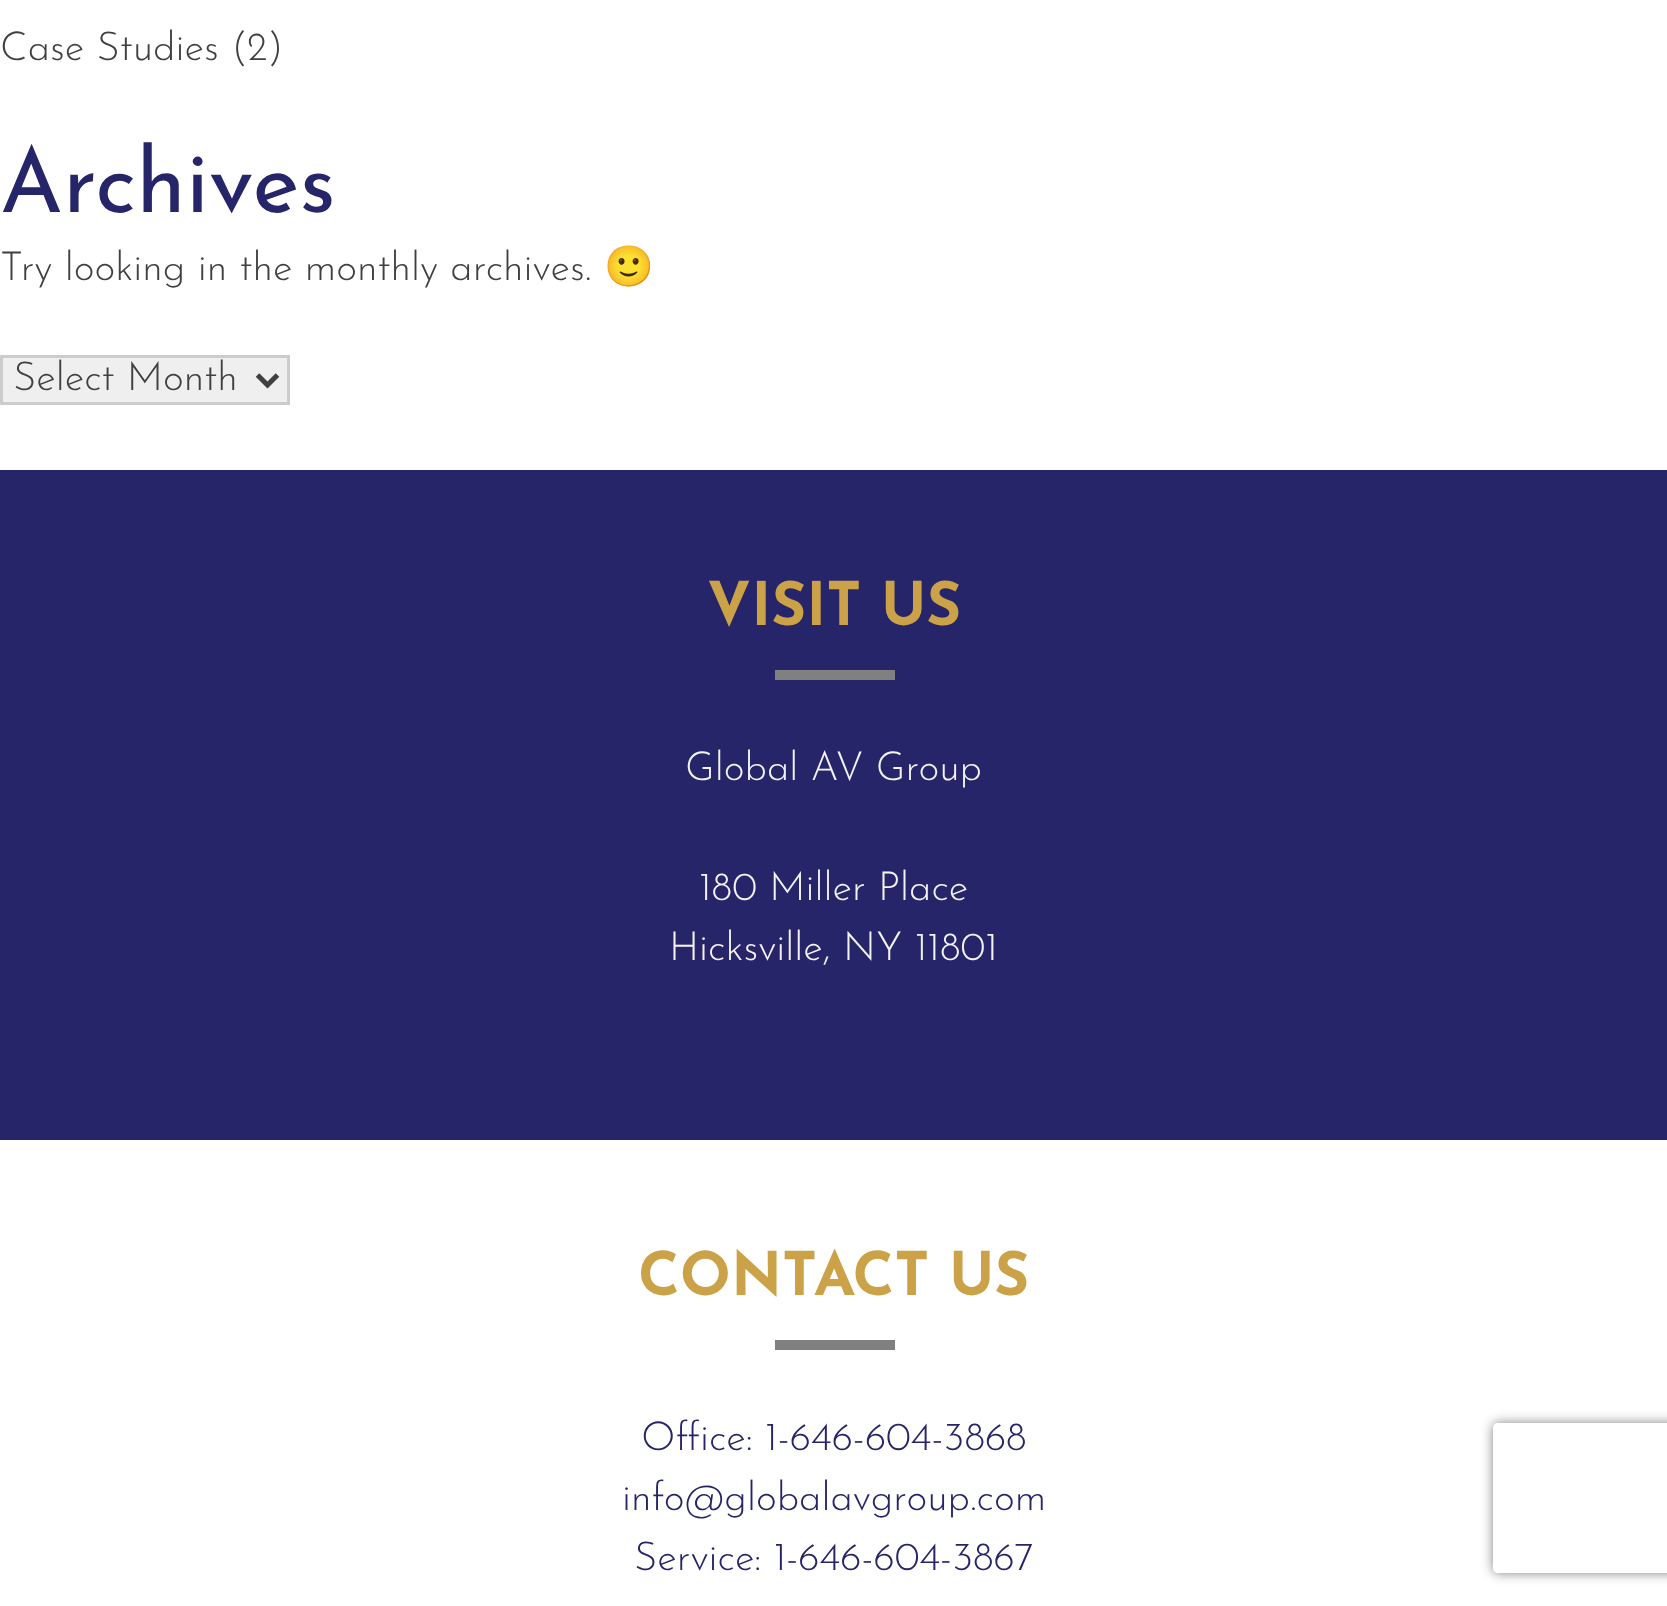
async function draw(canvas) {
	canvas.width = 1667;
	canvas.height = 1606;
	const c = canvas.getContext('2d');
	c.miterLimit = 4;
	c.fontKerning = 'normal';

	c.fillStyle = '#fff';
	c.fillRect(0, 0, 1667, 1606);
	c.font = '300 40px Josefin Sans';
	c.fillStyle = '#404040';
	c.fillText('Case Studies (2)', 0, 60);
	c.font = '90px Josefin Sans';
	c.fillStyle = '#26256a';
	c.fillText('Archives', 0, 212);
	c.font = '300 40px Josefin Sans';
	c.fillStyle = '#404040';
	c.fillText('Try looking in the monthly archives.', 0, 280);
	c.font = '40px Noto Color Emoji';
	c.fillText('🙂', 604, 280);
	c.fillStyle = '#efefef';
	c.beginPath();
	c.rect(1.5, 356.5, 287, 47);
	c.fill();
	c.strokeStyle = '#ccc';
	c.lineWidth = 3;
	c.stroke();
	c.beginPath();
	c.moveTo(257.5, 375);
	c.lineTo(267.5, 385);
	c.lineTo(277.5, 375);
	c.strokeStyle = '#404040';
	c.lineWidth = 5;
	c.stroke();
	c.font = '300 40px Josefin Sans';
	c.fillStyle = '#404040';
	c.fillText('Select Month', 13, 390);
	c.fillStyle = '#26256a';
	c.fillRect(0, 470, 1667, 670);
	c.font = 'bold 60px Josefin Sans';
	c.fillStyle = '#cca248';
	c.fillText('VISIT US', 707, 625);
	c.fillStyle = '#808080';
	c.fillRect(775, 670, 120, 10);
	c.font = '300 40px Josefin Sans';
	c.fillStyle = '#f3f3f3';
	for (const [text, x, y] of [
		['Global AV Group', 685, 780],
		['180 Miller Place', 699, 900],
		['Hicksville, NY 11801', 669, 960],
	]) {
		c.fillText(text, x, y);
	}
	c.font = 'bold 60px Josefin Sans';
	c.fillStyle = '#cca248';
	c.fillText('CONTACT US', 638, 1295);
	c.fillStyle = '#808080';
	c.fillRect(775, 1340, 120, 10);
	c.font = '300 40px Josefin Sans';
	c.fillStyle = '#26256a';
	for (const [text, x, y] of [
		['Office: 1-646-604-3868', 641, 1450],
		['info@globalavgroup.com', 622, 1510],
		['Service: 1-646-604-3867', 634, 1570],
	]) {
		c.fillText(text, x, y);
	}
	c.save();
	c.beginPath();
	c.moveTo(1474, 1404);
	c.lineTo(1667, 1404);
	c.lineTo(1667, 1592);
	c.lineTo(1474, 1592);
	c.closePath();
	c.moveTo(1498, 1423);
	c.lineTo(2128, 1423);
	c.bezierCurveTo(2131, 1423, 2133, 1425, 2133, 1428);
	c.lineTo(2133, 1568);
	c.bezierCurveTo(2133, 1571, 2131, 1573, 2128, 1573);
	c.lineTo(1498, 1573);
	c.bezierCurveTo(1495, 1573, 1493, 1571, 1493, 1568);
	c.lineTo(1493, 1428);
	c.bezierCurveTo(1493, 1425, 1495, 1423, 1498, 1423);
	c.closePath();
	c.clip('evenodd');
	c.fillStyle = '#808080';
	c.filter = 'blur(6px)';
	c.beginPath();
	c.roundRect(1493, 1423, 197, 150, 5);
	c.fill();
	c.filter = 'none';
	c.restore();
}

draw(document.querySelector('canvas'));
